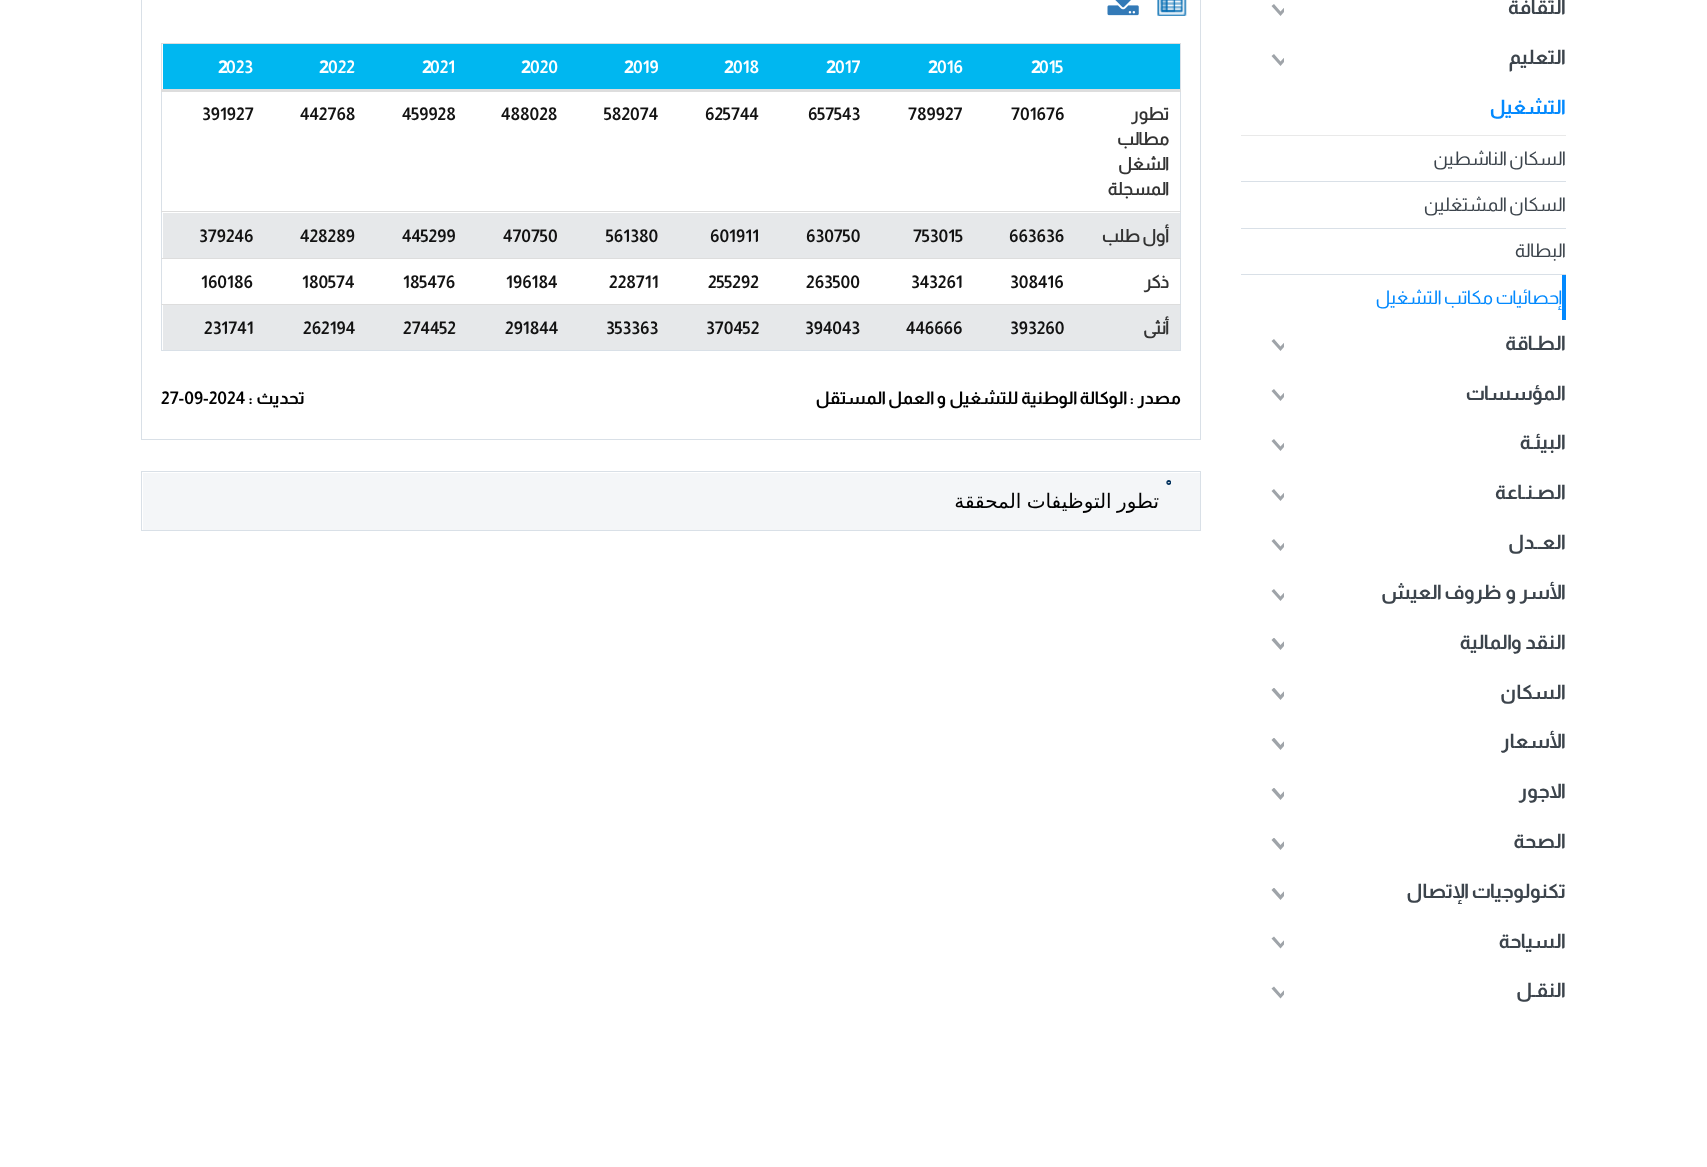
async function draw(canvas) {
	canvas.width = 1707;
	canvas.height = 1167;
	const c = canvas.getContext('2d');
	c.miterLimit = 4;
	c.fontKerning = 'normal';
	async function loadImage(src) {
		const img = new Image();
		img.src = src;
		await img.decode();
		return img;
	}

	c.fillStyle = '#fff';
	c.fillRect(0, 0, 1707, 1167);
	c.direction = 'rtl';
	c.font = 'bold 20px Almarai';
	c.fillStyle = '#3c444c';
	c.fillText('الثقافة', 1566, 14);
	c.save();
	c.beginPath();
	c.rect(1271, 4, 13, 12);
	c.clip();
	c.fillStyle = '#9fa4a9';
	c.beginPath();
	c.moveTo(1280.5, 16);
	c.lineTo(1289.5, 6);
	c.lineTo(1287.5, 4);
	c.lineTo(1280.5, 11.5);
	c.lineTo(1274, 4);
	c.lineTo(1271.5, 6);
	c.closePath();
	c.fill();
	c.restore();
	c.fillText('التعليم', 1566, 64);
	c.save();
	c.beginPath();
	c.rect(1271, 54, 13, 12);
	c.clip();
	c.fillStyle = '#9fa4a9';
	c.beginPath();
	c.moveTo(1280.5, 66);
	c.lineTo(1289.5, 56);
	c.lineTo(1287.5, 54);
	c.lineTo(1280.5, 61.5);
	c.lineTo(1274, 54);
	c.lineTo(1271.5, 56);
	c.closePath();
	c.fill();
	c.restore();
	c.fillStyle = '#0289fe';
	c.fillText('التشغيل', 1566, 114);
	c.fillStyle = '#e9e9e9';
	c.fillRect(1241, 135, 325, 1);
	c.fillStyle = '#d9e0e7';
	c.fillRect(1241, 181, 325, 1);
	c.font = '18.75px Almarai';
	c.fillStyle = '#3c444c';
	c.fillText('السكان الناشطين', 1566, 165);
	c.fillStyle = '#d9e0e7';
	c.fillRect(1241, 228, 325, 1);
	c.fillStyle = '#3c444c';
	c.fillText('السكان المشتغلين', 1566, 211);
	c.fillStyle = '#d9e0e7';
	c.fillRect(1241, 274, 325, 1);
	c.fillStyle = '#3c444c';
	c.fillText('البطالة', 1566, 257);
	c.fillStyle = '#0389fe';
	c.beginPath();
	c.moveTo(1566, 275);
	c.lineTo(1566, 321);
	c.lineTo(1562, 320);
	c.lineTo(1562, 275);
	c.closePath();
	c.fill();
	c.fillStyle = '#0289fe';
	c.fillText('إحصائيات مكاتب التشغيل', 1562, 304);
	c.fillStyle = '#fff';
	c.fillRect(1562, 320, 4, 1);
	c.font = 'bold 20px Almarai';
	c.fillStyle = '#3c444c';
	c.fillText('الطـاقة', 1566, 350);
	c.save();
	c.beginPath();
	c.rect(1271, 339, 13, 12);
	c.clip();
	c.fillStyle = '#9fa4a9';
	c.beginPath();
	c.moveTo(1280.5, 351);
	c.lineTo(1289.5, 341);
	c.lineTo(1287.5, 339);
	c.lineTo(1280.5, 346.5);
	c.lineTo(1274, 339);
	c.lineTo(1271.5, 341);
	c.closePath();
	c.fill();
	c.restore();
	c.fillText('المؤسسات', 1566, 400);
	c.save();
	c.beginPath();
	c.rect(1271, 389, 13, 12);
	c.clip();
	c.fillStyle = '#9fa4a9';
	c.beginPath();
	c.moveTo(1280.5, 401);
	c.lineTo(1289.5, 391);
	c.lineTo(1287.5, 389);
	c.lineTo(1280.5, 396.5);
	c.lineTo(1274, 389);
	c.lineTo(1271.5, 391);
	c.closePath();
	c.fill();
	c.restore();
	c.fillText('البيئـة', 1566, 449);
	c.save();
	c.beginPath();
	c.rect(1271, 439, 13, 12);
	c.clip();
	c.fillStyle = '#9fa4a9';
	c.beginPath();
	c.moveTo(1280.5, 451);
	c.lineTo(1289.5, 441);
	c.lineTo(1287.5, 439);
	c.lineTo(1280.5, 446.5);
	c.lineTo(1274, 439);
	c.lineTo(1271.5, 441);
	c.closePath();
	c.fill();
	c.restore();
	c.fillText('الصـنـاعة', 1566, 499);
	c.save();
	c.beginPath();
	c.rect(1271, 489, 13, 12);
	c.clip();
	c.fillStyle = '#9fa4a9';
	c.beginPath();
	c.moveTo(1280.5, 501);
	c.lineTo(1289.5, 491);
	c.lineTo(1287.5, 489);
	c.lineTo(1280.5, 496.5);
	c.lineTo(1274, 489);
	c.lineTo(1271.5, 491);
	c.closePath();
	c.fill();
	c.restore();
	c.fillText('العــدل', 1566, 549);
	c.save();
	c.beginPath();
	c.rect(1271, 539, 13, 12);
	c.clip();
	c.fillStyle = '#9fa4a9';
	c.beginPath();
	c.moveTo(1280.5, 551);
	c.lineTo(1289.5, 541);
	c.lineTo(1287.5, 539);
	c.lineTo(1280.5, 546.5);
	c.lineTo(1274, 539);
	c.lineTo(1271.5, 541);
	c.closePath();
	c.fill();
	c.restore();
	c.fillText('الأسر و ظروف العيش', 1566, 599);
	c.save();
	c.beginPath();
	c.rect(1271, 589, 13, 12);
	c.clip();
	c.fillStyle = '#9fa4a9';
	c.beginPath();
	c.moveTo(1280.5, 601);
	c.lineTo(1289.5, 591);
	c.lineTo(1287.5, 589);
	c.lineTo(1280.5, 596.5);
	c.lineTo(1274, 589);
	c.lineTo(1271.5, 591);
	c.closePath();
	c.fill();
	c.restore();
	c.fillText('النقد والمالية', 1566, 649);
	c.save();
	c.beginPath();
	c.rect(1271, 638, 13, 12);
	c.clip();
	c.fillStyle = '#9fa4a9';
	c.beginPath();
	c.moveTo(1280.5, 650);
	c.lineTo(1289.5, 640);
	c.lineTo(1287.5, 637.5);
	c.lineTo(1280.5, 645);
	c.lineTo(1274, 637.5);
	c.lineTo(1271.5, 640);
	c.closePath();
	c.fill();
	c.restore();
	c.fillText('السكان', 1566, 699);
	c.save();
	c.beginPath();
	c.rect(1271, 688, 13, 12);
	c.clip();
	c.fillStyle = '#9fa4a9';
	c.beginPath();
	c.moveTo(1280.5, 700);
	c.lineTo(1289.5, 690);
	c.lineTo(1287.5, 687.5);
	c.lineTo(1280.5, 695);
	c.lineTo(1274, 687.5);
	c.lineTo(1271.5, 690);
	c.closePath();
	c.fill();
	c.restore();
	c.fillText('الأسعار', 1566, 748);
	c.save();
	c.beginPath();
	c.rect(1271, 738, 13, 12);
	c.clip();
	c.fillStyle = '#9fa4a9';
	c.beginPath();
	c.moveTo(1280.5, 750);
	c.lineTo(1289.5, 740);
	c.lineTo(1287.5, 737.5);
	c.lineTo(1280.5, 745);
	c.lineTo(1274, 737.5);
	c.lineTo(1271.5, 740);
	c.closePath();
	c.fill();
	c.restore();
	c.fillText('الاجور', 1566, 798);
	c.save();
	c.beginPath();
	c.rect(1271, 788, 13, 12);
	c.clip();
	c.fillStyle = '#9fa4a9';
	c.beginPath();
	c.moveTo(1280.5, 800);
	c.lineTo(1289.5, 790);
	c.lineTo(1287.5, 787.5);
	c.lineTo(1280.5, 795);
	c.lineTo(1274, 787.5);
	c.lineTo(1271.5, 790);
	c.closePath();
	c.fill();
	c.restore();
	c.fillText('الصحة', 1566, 848);
	c.save();
	c.beginPath();
	c.rect(1271, 838, 13, 12);
	c.clip();
	c.fillStyle = '#9fa4a9';
	c.beginPath();
	c.moveTo(1280.5, 850);
	c.lineTo(1289.5, 840);
	c.lineTo(1287.5, 837.5);
	c.lineTo(1280.5, 845);
	c.lineTo(1274, 837.5);
	c.lineTo(1271.5, 840);
	c.closePath();
	c.fill();
	c.restore();
	c.fillText('تكنولوجيات الإتصال', 1566, 898);
	c.save();
	c.beginPath();
	c.rect(1271, 888, 13, 12);
	c.clip();
	c.fillStyle = '#9fa4a9';
	c.beginPath();
	c.moveTo(1280.5, 900);
	c.lineTo(1289.5, 890);
	c.lineTo(1287.5, 887.5);
	c.lineTo(1280.5, 895);
	c.lineTo(1274, 887.5);
	c.lineTo(1271.5, 890);
	c.closePath();
	c.fill();
	c.restore();
	c.fillText('السياحة', 1566, 948);
	c.save();
	c.beginPath();
	c.rect(1271, 936, 13, 13);
	c.clip();
	c.fillStyle = '#9fa4a9';
	c.beginPath();
	c.moveTo(1280.5, 948.5);
	c.lineTo(1289.5, 938.5);
	c.lineTo(1287.5, 936.5);
	c.lineTo(1280.5, 944);
	c.lineTo(1274, 936.5);
	c.lineTo(1271.5, 938.5);
	c.closePath();
	c.fill();
	c.restore();
	c.fillText('النقـل', 1566, 997);
	c.save();
	c.beginPath();
	c.rect(1271, 986, 13, 13);
	c.clip();
	c.fillStyle = '#9fa4a9';
	c.beginPath();
	c.moveTo(1280.5, 998.5);
	c.lineTo(1289.5, 988.5);
	c.lineTo(1287.5, 986.5);
	c.lineTo(1280.5, 994);
	c.lineTo(1274, 986.5);
	c.lineTo(1271.5, 988.5);
	c.closePath();
	c.fill();
	c.restore();
	c.strokeStyle = '#d9e0e7';
	c.strokeRect(141.5, -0.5, 1059, 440);
	c.drawImage(await loadImage('img1.png'), 1157, 0, 30, 16);
	c.drawImage(await loadImage('img2.png'), 1107, 0, 32, 16);
	for (const [x, y, w, h, color] of [
		[1180, 43, 1, 308, '#d9e0e7'],
		[161, 350, 1020, 1, '#d9e0e7'],
		[161, 43, 1, 308, '#d9e0e7'],
		[163, 44, 1017, 45, '#00b7f0'],
	]) {
		c.fillStyle = color;
		c.fillRect(x, y, w, h);
	}
	c.direction = 'ltr';
	c.font = 'bold 17.5px Noto Sans';
	c.fillStyle = '#fff';
	c.fillText('2', 1031, 73);
	c.font = 'bold 17.5px Almarai';
	c.fillText('015', 1039, 73);
	c.font = 'bold 17.5px Noto Sans';
	c.fillText('2', 928, 73);
	c.font = 'bold 17.5px Almarai';
	c.fillText('016', 937, 73);
	c.font = 'bold 17.5px Noto Sans';
	c.fillText('2', 826, 73);
	c.font = 'bold 17.5px Almarai';
	c.fillText('017', 835, 73);
	c.font = 'bold 17.5px Noto Sans';
	c.fillText('2', 724, 73);
	c.font = 'bold 17.5px Almarai';
	c.fillText('018', 733, 73);
	c.font = 'bold 17.5px Noto Sans';
	c.fillText('2', 624, 73);
	c.font = 'bold 17.5px Almarai';
	c.fillText('019', 633, 73);
	c.font = 'bold 17.5px Noto Sans';
	c.fillText('2', 521, 73);
	c.font = 'bold 17.5px Almarai';
	c.fillText('020', 530, 73);
	c.font = 'bold 17.5px Noto Sans';
	c.fillText('2', 422, 73);
	c.font = 'bold 17.5px Almarai';
	c.fillText('021', 430, 73);
	c.font = 'bold 17.5px Noto Sans';
	c.fillText('2', 319, 73);
	c.font = 'bold 17.5px Almarai';
	c.fillText('022', 328, 73);
	c.fillStyle = '#ddd';
	c.fillRect(161, 43, 1020, 1);
	c.fillRect(161, 89, 1020, 3);
	c.font = 'bold 17.5px Noto Sans';
	c.fillStyle = '#fff';
	c.fillText('2', 218, 73);
	c.font = 'bold 17.5px Almarai';
	c.fillText('023', 226, 73);
	c.direction = 'rtl';
	c.font = 'bold 17.5px "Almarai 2"';
	c.fillStyle = '#333';
	for (const [text, x, y] of [
		['تطور', 1169, 120],
		['مطالب', 1169, 145],
		['الشغل', 1169, 170],
		['المسجلة', 1169, 195],
	]) {
		c.fillText(text, x, y);
	}
	c.direction = 'ltr';
	c.font = 'bold 17.5px Almarai';
	c.fillStyle = '#121212';
	for (const [text, x, y] of [
		['701676', 1011, 120],
		['789927', 908, 120],
		['657543', 808, 120],
		['625744', 705, 120],
		['582074', 604, 120],
		['488028', 501, 120],
		['459928', 402, 120],
		['442768', 300, 120],
		['391927', 202, 120],
	]) {
		c.fillText(text, x, y);
	}
	c.fillStyle = '#e6e8ea';
	c.fillRect(163, 213, 1017, 45);
	c.direction = 'rtl';
	c.font = 'bold 17.5px "Almarai 2"';
	c.fillStyle = '#333';
	c.fillText('أول طلب', 1169, 242);
	c.direction = 'ltr';
	c.font = 'bold 17.5px Almarai';
	c.fillStyle = '#121212';
	for (const [text, x, y] of [
		['663636', 1009, 242],
		['753015', 913, 242],
		['630750', 806, 242],
		['601911', 710, 242],
		['561380', 606, 242],
		['470750', 503, 242],
		['445299', 402, 242],
		['428289', 300, 242],
	]) {
		c.fillText(text, x, y);
	}
	c.fillStyle = '#ddd';
	c.fillRect(161, 211, 1020, 1);
	c.fillStyle = '#121212';
	c.fillText('379246', 199, 242);
	c.direction = 'rtl';
	c.font = 'bold 17.5px "Almarai 2"';
	c.fillStyle = '#333';
	c.fillText('ذكر', 1169, 288);
	c.direction = 'ltr';
	c.font = 'bold 17.5px Almarai';
	c.fillStyle = '#121212';
	for (const [text, x, y] of [
		['308416', 1010, 288],
		['343261', 911, 288],
		['263500', 806, 288],
		['255292', 708, 288],
		['228711', 609, 288],
		['196184', 506, 288],
		['185476', 403, 288],
		['180574', 302, 288],
	]) {
		c.fillText(text, x, y);
	}
	c.fillStyle = '#ddd';
	c.fillRect(161, 258, 1020, 1);
	c.fillStyle = '#121212';
	c.fillText('160186', 201, 288);
	c.fillStyle = '#e6e8ea';
	c.fillRect(163, 305, 1017, 45);
	c.direction = 'rtl';
	c.font = 'bold 17.5px "Almarai 2"';
	c.fillStyle = '#333';
	c.fillText('أنثى', 1169, 334);
	c.direction = 'ltr';
	c.font = 'bold 17.5px Almarai';
	c.fillStyle = '#121212';
	for (const [text, x, y] of [
		['393260', 1010, 334],
		['446666', 906, 334],
		['394043', 805, 334],
		['370452', 706, 334],
		['353363', 606, 334],
		['291844', 505, 334],
		['274452', 403, 334],
		['262194', 303, 334],
	]) {
		c.fillText(text, x, y);
	}
	c.fillStyle = '#ddd';
	c.fillRect(161, 304, 1020, 1);
	c.fillStyle = '#121212';
	c.fillText('231741', 204, 334);
	c.direction = 'rtl';
	c.fillStyle = '#000';
	c.fillText('مصدر : الوكالة الوطنية للتشغيل و العمل المستقل', 1181, 404);
	c.fillText('تحديث :', 305, 404);
	c.direction = 'ltr';
	c.fillText('27-09-2024', 161, 404);
	c.strokeRect(141.5, 471.5, 1059, 59);
	c.fillStyle = '#f4f6f8';
	c.fillRect(143, 473, 1057, 57);
	c.drawImage(await loadImage('img3.png'), 1166, 480, 5, 5);
	c.wordSpacing = '-1px';
	c.direction = 'rtl';
	c.font = '20px DejaVu Sans';
	c.fillStyle = '#000';
	c.fillText('تطور التوظيفات المحققة', 1159, 508);
}

draw(document.querySelector('canvas'));
